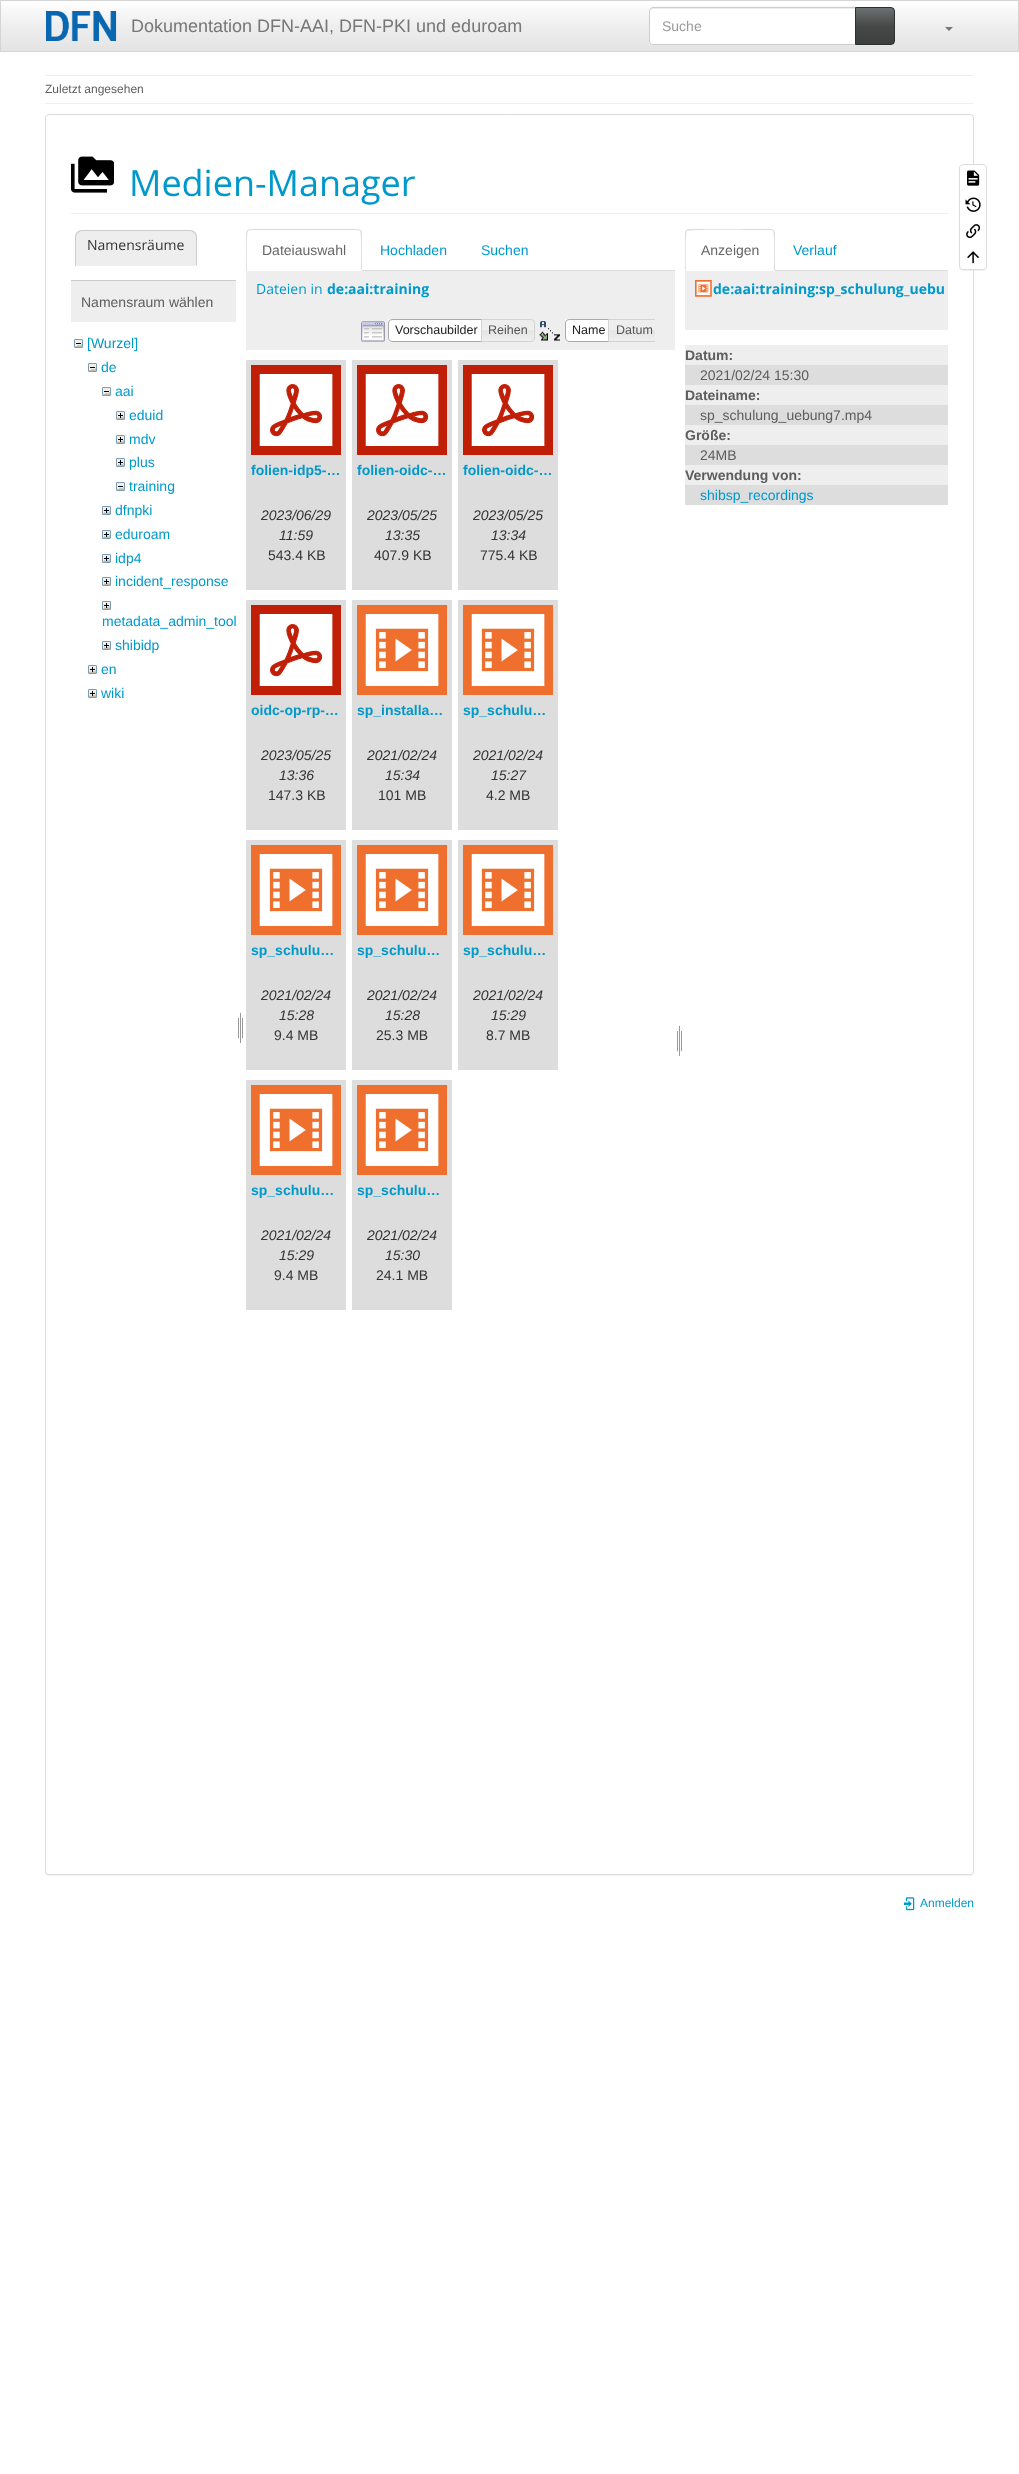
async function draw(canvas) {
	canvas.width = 1019;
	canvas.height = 2474;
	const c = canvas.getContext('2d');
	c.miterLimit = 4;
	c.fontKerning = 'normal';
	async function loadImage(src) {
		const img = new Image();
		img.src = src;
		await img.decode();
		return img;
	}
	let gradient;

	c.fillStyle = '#fff';
	c.fillRect(0, 0, 1019, 2474);
	gradient = c.createLinearGradient(510, 1, 510, 51);
	gradient.addColorStop(0, '#fff');
	gradient.addColorStop(0.5, '#eee');
	gradient.addColorStop(1, '#e4e4e4');
	c.fillStyle = gradient;
	c.fillRect(1, 5, 1017, 46);
	c.strokeStyle = '#d5d5d5';
	c.strokeRect(0.5, 0.5, 1018, 51);
	c.drawImage(await loadImage('img1.png'), 46, 11, 71, 30);
	c.font = '18px Liberation Sans';
	c.fillStyle = '#777';
	c.fillText('Dokumentation DFN-AAI, DFN-PKI und eduroam', 131, 32);
	c.fillStyle = '#fff';
	c.beginPath();
	c.roundRect(649, 7, 207, 38, [4, 0, 0, 4]);
	c.fill();
	c.fillStyle = '#ececec';
	c.beginPath();
	c.moveTo(653, 9);
	c.lineTo(855, 9);
	c.lineTo(855, 8);
	c.lineTo(652, 8);
	c.bezierCurveTo(650, 9, 650, 10, 650, 12);
	c.bezierCurveTo(650, 10, 651, 9, 653, 9);
	c.closePath();
	c.fill();
	c.beginPath();
	c.roundRect(649.5, 7.5, 206, 37, [3.5, 0, 0, 3.5]);
	c.strokeStyle = '#ccc';
	c.stroke();
	c.font = '14px Liberation Sans';
	c.fillStyle = '#999';
	c.fillText('Suche', 662, 31);
	gradient = c.createLinearGradient(875, 8, 875, 44);
	gradient.addColorStop(0, '#6d7070');
	gradient.addColorStop(0.5, '#474949');
	gradient.addColorStop(1, '#3d3f3f');
	c.fillStyle = gradient;
	c.fillRect(856, 8, 38, 36);
	c.beginPath();
	c.roundRect(855.5, 7.5, 39, 37, [0, 3.5, 3.5, 0]);
	c.strokeStyle = '#2e2f2f';
	c.stroke();
	c.fillStyle = '#777';
	c.beginPath();
	c.moveTo(945, 27);
	c.lineTo(953, 27);
	c.lineTo(949, 31);
	c.closePath();
	c.fill();
	c.fillStyle = '#eee';
	c.fillRect(45, 75, 929, 1);
	c.font = '12px Liberation Sans';
	c.fillStyle = '#5d5d5d';
	c.fillText('Zuletzt angesehen', 45, 93);
	c.fillStyle = '#eee';
	c.fillRect(45, 103, 929, 1);
	c.fillStyle = '#0000000d';
	c.filter = 'blur(0.5px)';
	c.beginPath();
	c.roundRect(45, 115, 929, 1761, 4);
	c.fill();
	c.filter = 'none';
	c.fillStyle = '#fff';
	c.beginPath();
	c.roundRect(45.5, 114.5, 928, 1760, 3.5);
	c.fill();
	c.strokeStyle = '#ddd';
	c.stroke();
	c.fillStyle = '#eee';
	c.fillRect(71, 213, 877, 1);
	c.drawImage(await loadImage('img2.png'), 71, 156, 43, 37);
	c.font = '36px Open Sans';
	c.fillStyle = '#09c';
	c.fillText('Medien-Manager', 129, 196);
	c.fillStyle = '#eee';
	c.beginPath();
	c.roundRect(75, 230, 122, 36, [7, 7, 0, 0]);
	c.fill();
	c.fillStyle = '#ccc';
	c.beginPath();
	c.moveTo(82, 230);
	c.bezierCurveTo(80, 230, 78, 231, 77, 232);
	c.lineTo(78, 233);
	c.lineTo(81, 231);
	c.lineTo(191, 231);
	c.lineTo(194, 233);
	c.lineTo(195, 232);
	c.bezierCurveTo(194, 231, 192, 230, 190, 230);
	c.closePath();
	c.fill();
	c.beginPath();
	c.moveTo(197, 266);
	c.lineTo(197, 237);
	c.bezierCurveTo(197, 235, 196, 233, 195, 232);
	c.lineTo(194, 233);
	c.bezierCurveTo(195, 234, 196, 235.5, 196, 237);
	c.lineTo(196, 265);
	c.closePath();
	c.fill();
	c.fillStyle = '#eee';
	c.beginPath();
	c.moveTo(197, 266);
	c.lineTo(196, 265);
	c.lineTo(76, 265);
	c.lineTo(75, 266);
	c.closePath();
	c.fill();
	c.fillStyle = '#ccc';
	c.beginPath();
	c.moveTo(75, 266);
	c.lineTo(76, 265);
	c.lineTo(76, 237);
	c.bezierCurveTo(76, 235.5, 77, 234, 78, 233);
	c.lineTo(77, 232);
	c.bezierCurveTo(76, 233, 75, 235, 75, 237);
	c.closePath();
	c.fill();
	c.font = '14px Open Sans';
	c.fillStyle = '#333';
	c.fillText('Namensräume', 87, 250);
	c.fillStyle = '#eee';
	c.fillRect(71, 281, 165, 41);
	c.fillStyle = '#ccc';
	c.fillRect(71, 280, 165, 1);
	c.font = '14px Liberation Sans';
	c.fillStyle = '#5d5d5d';
	c.fillText('Namensraum wählen', 81, 307);
	c.drawImage(await loadImage('img3.png'), 74, 339, 9, 9);
	c.fillStyle = '#09c';
	c.fillText('[Wurzel]', 87, 348);
	c.drawImage(await loadImage('img3.png'), 88, 363, 9, 9);
	c.fillText('de', 101, 372);
	c.drawImage(await loadImage('img3.png'), 102, 387, 9, 9);
	c.fillText('aai', 115, 396);
	c.drawImage(await loadImage('img4.png'), 116, 411, 9, 9);
	c.fillText('eduid', 129, 420);
	c.drawImage(await loadImage('img4.png'), 116, 435, 9, 9);
	c.fillText('mdv', 129, 444);
	c.drawImage(await loadImage('img4.png'), 116, 458, 9, 9);
	c.fillText('plus', 129, 467);
	c.drawImage(await loadImage('img3.png'), 116, 482, 9, 9);
	c.fillText('training', 129, 491);
	c.drawImage(await loadImage('img4.png'), 102, 506, 9, 9);
	c.fillText('dfnpki', 115, 515);
	c.drawImage(await loadImage('img4.png'), 102, 530, 9, 9);
	c.fillText('eduroam', 115, 539);
	c.drawImage(await loadImage('img4.png'), 102, 554, 9, 9);
	c.fillText('idp4', 115, 563);
	c.drawImage(await loadImage('img4.png'), 102, 577, 9, 9);
	c.fillText('incident_response', 115, 586);
	c.drawImage(await loadImage('img4.png'), 102, 601, 9, 9);
	c.fillText('metadata_admin_tool', 102, 626);
	c.drawImage(await loadImage('img4.png'), 102, 641, 9, 9);
	c.fillText('shibidp', 115, 650);
	c.drawImage(await loadImage('img4.png'), 88, 665, 9, 9);
	c.fillText('en', 101, 674);
	c.drawImage(await loadImage('img4.png'), 88, 689, 9, 9);
	c.fillText('wiki', 101, 698);
	c.drawImage(await loadImage('img5.png'), 238, 1012, 5, 31);
	c.fillStyle = '#ddd';
	c.fillRect(362, 270, 313, 1);
	c.beginPath();
	c.moveTo(250, 229);
	c.lineTo(247, 230);
	c.lineTo(248, 231);
	c.lineTo(250, 230);
	c.lineTo(358, 230);
	c.lineTo(360, 231);
	c.lineTo(361, 230);
	c.lineTo(358, 229);
	c.closePath();
	c.fill();
	c.beginPath();
	c.moveTo(362, 271);
	c.lineTo(362, 233);
	c.bezierCurveTo(362, 232, 362, 231, 361, 230);
	c.lineTo(360, 231);
	c.bezierCurveTo(362, 233, 361, 265, 361, 270);
	c.closePath();
	c.fill();
	c.beginPath();
	c.moveTo(246, 271);
	c.lineTo(247, 270);
	c.bezierCurveTo(247, 265, 246, 233, 248, 231);
	c.lineTo(247, 230);
	c.lineTo(246, 233);
	c.closePath();
	c.fill();
	c.fillStyle = '#666';
	c.fillText('Dateiauswahl', 262, 255);
	c.fillStyle = '#09c';
	c.fillText('Hochladen', 380, 255);
	c.fillText('Suchen', 481, 255);
	c.fillStyle = '#eee';
	c.fillRect(246, 271, 429, 79);
	c.font = '14px Open Sans';
	c.fillStyle = '#09c';
	c.fillText('Dateien in', 256, 294);
	c.font = 'bold 14px Open Sans';
	c.fillText('de:aai:training', 327, 294);
	c.drawImage(await loadImage('img6.png'), 361, 321, 24, 21);
	c.fillStyle = '#fff';
	c.fillRect(388, 319, 93, 23);
	c.beginPath();
	c.roundRect(388.5, 319.5, 97, 22, [3.5, 0, 0, 3.5]);
	c.strokeStyle = '#aaa';
	c.stroke();
	c.font = '12.5px Liberation Sans';
	c.fillStyle = '#212121';
	c.fillText('Vorschaubilder', 395, 334);
	c.drawImage(await loadImage('img7.png'), 482, 319, 53, 23);
	c.beginPath();
	c.roundRect(481.5, 319.5, 53, 22, [0, 3.5, 3.5, 0]);
	c.strokeStyle = '#d3d3d3';
	c.stroke();
	c.fillStyle = '#555';
	c.fillText('Reihen', 488, 334);
	c.drawImage(await loadImage('img8.png'), 539, 321, 21, 20);
	c.fillStyle = '#fff';
	c.fillRect(565, 319, 43, 23);
	c.beginPath();
	c.roundRect(565.5, 319.5, 47, 22, [3.5, 0, 0, 3.5]);
	c.strokeStyle = '#aaa';
	c.stroke();
	c.fillStyle = '#212121';
	c.fillText('Name', 572, 334);
	c.drawImage(await loadImage('img9.png'), 609, 320, 46, 21);
	c.save();
	c.beginPath();
	c.rect(353, 319, 302, 23);
	c.clip();
	c.beginPath();
	c.roundRect(608.5, 319.5, 51, 22, [0, 3.5, 3.5, 0]);
	c.strokeStyle = '#d3d3d3';
	c.stroke();
	c.restore();
	c.fillStyle = '#555';
	c.fillText('Datum', 616, 334);
	c.fillStyle = '#ddd';
	c.fillRect(246, 360, 100, 230);
	c.drawImage(await loadImage('img10.png'), 251, 365, 90, 90);
	c.font = 'bold 14px Liberation Sans';
	c.fillStyle = '#09c';
	c.fillText('folien-idp5-…', 251, 475);
	c.font = 'italic 14px Liberation Sans';
	c.fillStyle = '#333';
	c.fillText('2023/06/29', 261, 520);
	c.fillText('11:59', 279, 540);
	c.font = '14px Liberation Sans';
	c.fillText('543.4 KB', 268, 560);
	c.fillStyle = '#ddd';
	c.fillRect(352, 360, 100, 230);
	c.drawImage(await loadImage('img10.png'), 357, 365, 90, 90);
	c.font = 'bold 14px Liberation Sans';
	c.fillStyle = '#09c';
	c.fillText('folien-oidc-…', 357, 475);
	c.font = 'italic 14px Liberation Sans';
	c.fillStyle = '#333';
	c.fillText('2023/05/25', 367, 520);
	c.fillText('13:35', 385, 540);
	c.font = '14px Liberation Sans';
	c.fillText('407.9 KB', 374, 560);
	c.fillStyle = '#ddd';
	c.fillRect(458, 360, 100, 230);
	c.drawImage(await loadImage('img10.png'), 463, 365, 90, 90);
	c.font = 'bold 14px Liberation Sans';
	c.fillStyle = '#09c';
	c.fillText('folien-oidc-…', 463, 475);
	c.font = 'italic 14px Liberation Sans';
	c.fillStyle = '#333';
	c.fillText('2023/05/25', 473, 520);
	c.fillText('13:34', 491, 540);
	c.font = '14px Liberation Sans';
	c.fillText('775.4 KB', 480, 560);
	c.fillStyle = '#ddd';
	c.fillRect(246, 600, 100, 230);
	c.drawImage(await loadImage('img10.png'), 251, 605, 90, 90);
	c.font = 'bold 14px Liberation Sans';
	c.fillStyle = '#09c';
	c.fillText('oidc-op-rp-…', 251, 715);
	c.font = 'italic 14px Liberation Sans';
	c.fillStyle = '#333';
	c.fillText('2023/05/25', 261, 760);
	c.fillText('13:36', 279, 780);
	c.font = '14px Liberation Sans';
	c.fillText('147.3 KB', 268, 800);
	c.fillStyle = '#ddd';
	c.fillRect(352, 600, 100, 230);
	c.drawImage(await loadImage('img11.png'), 357, 605, 90, 90);
	c.font = 'bold 14px Liberation Sans';
	c.fillStyle = '#09c';
	c.fillText('sp_installa…', 357, 715);
	c.font = 'italic 14px Liberation Sans';
	c.fillStyle = '#333';
	c.fillText('2021/02/24', 367, 760);
	c.fillText('15:34', 385, 780);
	c.font = '14px Liberation Sans';
	c.fillText('101 MB', 378, 800);
	c.fillStyle = '#ddd';
	c.fillRect(458, 600, 100, 230);
	c.drawImage(await loadImage('img11.png'), 463, 605, 90, 90);
	c.font = 'bold 14px Liberation Sans';
	c.fillStyle = '#09c';
	c.fillText('sp_schulu…', 463, 715);
	c.font = 'italic 14px Liberation Sans';
	c.fillStyle = '#333';
	c.fillText('2021/02/24', 473, 760);
	c.fillText('15:27', 491, 780);
	c.font = '14px Liberation Sans';
	c.fillText('4.2 MB', 486, 800);
	c.fillStyle = '#ddd';
	c.fillRect(246, 840, 100, 230);
	c.drawImage(await loadImage('img11.png'), 251, 845, 90, 90);
	c.font = 'bold 14px Liberation Sans';
	c.fillStyle = '#09c';
	c.fillText('sp_schulu…', 251, 955);
	c.font = 'italic 14px Liberation Sans';
	c.fillStyle = '#333';
	c.fillText('2021/02/24', 261, 1000);
	c.fillText('15:28', 279, 1020);
	c.font = '14px Liberation Sans';
	c.fillText('9.4 MB', 274, 1040);
	c.fillStyle = '#ddd';
	c.fillRect(352, 840, 100, 230);
	c.drawImage(await loadImage('img11.png'), 357, 845, 90, 90);
	c.font = 'bold 14px Liberation Sans';
	c.fillStyle = '#09c';
	c.fillText('sp_schulu…', 357, 955);
	c.font = 'italic 14px Liberation Sans';
	c.fillStyle = '#333';
	c.fillText('2021/02/24', 367, 1000);
	c.fillText('15:28', 385, 1020);
	c.font = '14px Liberation Sans';
	c.fillText('25.3 MB', 376, 1040);
	c.fillStyle = '#ddd';
	c.fillRect(458, 840, 100, 230);
	c.drawImage(await loadImage('img11.png'), 463, 845, 90, 90);
	c.font = 'bold 14px Liberation Sans';
	c.fillStyle = '#09c';
	c.fillText('sp_schulu…', 463, 955);
	c.font = 'italic 14px Liberation Sans';
	c.fillStyle = '#333';
	c.fillText('2021/02/24', 473, 1000);
	c.fillText('15:29', 491, 1020);
	c.font = '14px Liberation Sans';
	c.fillText('8.7 MB', 486, 1040);
	c.fillStyle = '#ddd';
	c.fillRect(246, 1080, 100, 230);
	c.drawImage(await loadImage('img11.png'), 251, 1085, 90, 90);
	c.font = 'bold 14px Liberation Sans';
	c.fillStyle = '#09c';
	c.fillText('sp_schulu…', 251, 1195);
	c.font = 'italic 14px Liberation Sans';
	c.fillStyle = '#333';
	c.fillText('2021/02/24', 261, 1240);
	c.fillText('15:29', 279, 1260);
	c.font = '14px Liberation Sans';
	c.fillText('9.4 MB', 274, 1280);
	c.fillStyle = '#ddd';
	c.fillRect(352, 1080, 100, 230);
	c.drawImage(await loadImage('img11.png'), 357, 1085, 90, 90);
	c.font = 'bold 14px Liberation Sans';
	c.fillStyle = '#09c';
	c.fillText('sp_schulu…', 357, 1195);
	c.font = 'italic 14px Liberation Sans';
	c.fillStyle = '#333';
	c.fillText('2021/02/24', 367, 1240);
	c.fillText('15:30', 385, 1260);
	c.font = '14px Liberation Sans';
	c.fillText('24.1 MB', 376, 1280);
	c.drawImage(await loadImage('img5.png'), 677, 1025, 5, 31);
	c.fillStyle = '#ddd';
	c.fillRect(775, 270, 173, 1);
	c.beginPath();
	c.moveTo(689, 229);
	c.lineTo(686, 230);
	c.lineTo(687, 231);
	c.bezierCurveTo(689, 229, 750, 230, 757, 230);
	c.lineTo(771, 230);
	c.lineTo(773, 231);
	c.lineTo(774, 230);
	c.lineTo(771, 229);
	c.closePath();
	c.fill();
	c.beginPath();
	c.moveTo(775, 271);
	c.lineTo(775, 233);
	c.bezierCurveTo(775, 232, 774, 231, 774, 230);
	c.lineTo(773, 231);
	c.bezierCurveTo(775, 233, 774, 265, 774, 270);
	c.closePath();
	c.fill();
	c.beginPath();
	c.moveTo(685, 271);
	c.lineTo(686, 270);
	c.bezierCurveTo(686, 265, 685, 233, 687, 231);
	c.lineTo(686, 230);
	c.lineTo(685, 233);
	c.closePath();
	c.fill();
	c.fillStyle = '#666';
	c.fillText('Anzeigen', 701, 255);
	c.fillStyle = '#09c';
	c.fillText('Verlauf', 793, 255);
	c.fillStyle = '#eee';
	c.fillRect(685, 271, 263, 59);
	c.drawImage(await loadImage('img12.png'), 695, 280, 17, 17);
	c.font = 'bold 14px Open Sans';
	c.fillStyle = '#09c';
	c.fillText('de:aai:training:sp_schulung_uebu', 713, 294);
	c.fillStyle = '#eee';
	c.fillRect(685, 345, 263, 20);
	c.font = 'bold 14px Liberation Sans';
	c.fillStyle = '#5d5d5d';
	c.fillText('Datum:', 685, 360);
	c.fillStyle = '#ddd';
	c.fillRect(685, 365, 263, 20);
	c.font = '14px Liberation Sans';
	c.fillStyle = '#5d5d5d';
	c.fillText('2021/02/24 15:30', 700, 380);
	c.fillStyle = '#eee';
	c.fillRect(685, 385, 263, 20);
	c.font = 'bold 14px Liberation Sans';
	c.fillStyle = '#5d5d5d';
	c.fillText('Dateiname:', 685, 400);
	c.fillStyle = '#ddd';
	c.fillRect(685, 405, 263, 20);
	c.font = '14px Liberation Sans';
	c.fillStyle = '#5d5d5d';
	c.fillText('sp_schulung_uebung7.mp4', 700, 420);
	c.fillStyle = '#eee';
	c.fillRect(685, 425, 263, 20);
	c.font = 'bold 14px Liberation Sans';
	c.fillStyle = '#5d5d5d';
	c.fillText('Größe:', 685, 440);
	c.fillStyle = '#ddd';
	c.fillRect(685, 445, 263, 20);
	c.font = '14px Liberation Sans';
	c.fillStyle = '#5d5d5d';
	c.fillText('24MB', 700, 460);
	c.fillStyle = '#eee';
	c.fillRect(685, 465, 263, 20);
	c.font = 'bold 14px Liberation Sans';
	c.fillStyle = '#5d5d5d';
	c.fillText('Verwendung von:', 685, 480);
	c.fillStyle = '#ddd';
	c.fillRect(685, 485, 263, 20);
	c.font = '14px Liberation Sans';
	c.fillStyle = '#09c';
	c.fillText('shibsp_recordings', 700, 500);
	c.fillStyle = '#0000000d';
	c.filter = 'blur(0.5px)';
	c.beginPath();
	c.roundRect(959, 165, 28, 106, 4);
	c.fill();
	c.filter = 'none';
	c.fillStyle = '#fff';
	c.beginPath();
	c.roundRect(959.5, 164.5, 27, 105, 3.5);
	c.fill();
	c.strokeStyle = '#ddd';
	c.stroke();
	c.drawImage(await loadImage('img13.png'), 967, 170, 13, 16);
	c.drawImage(await loadImage('img14.png'), 965, 197, 16, 15);
	c.drawImage(await loadImage('img15.png'), 966, 224, 15, 15);
	c.drawImage(await loadImage('img16.png'), 967, 251, 12, 13);
	c.drawImage(await loadImage('img17.png'), 903, 1897, 12, 14);
	c.font = '12px Liberation Sans';
	c.fillStyle = '#09c';
	c.fillText('Anmelden', 920, 1907);
}

draw(document.querySelector('canvas'));
